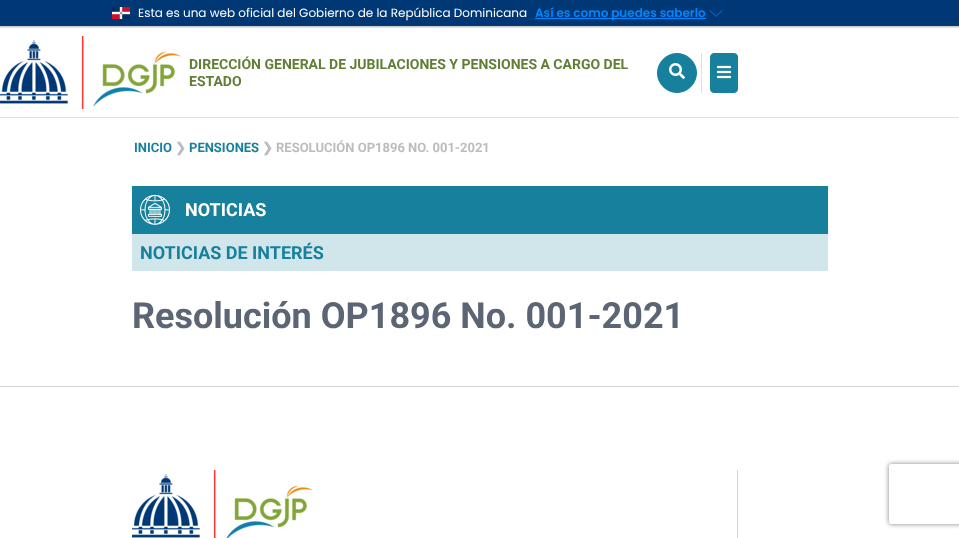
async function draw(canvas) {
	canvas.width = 959;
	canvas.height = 538;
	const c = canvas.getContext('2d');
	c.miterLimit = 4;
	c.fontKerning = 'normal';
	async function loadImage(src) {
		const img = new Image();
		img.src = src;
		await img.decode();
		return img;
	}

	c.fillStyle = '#fff';
	c.fillRect(0, 0, 959, 538);
	c.fillStyle = '#003876';
	c.fillRect(0, 0, 959, 26);
	c.fillStyle = '#ccc';
	c.fillRect(0, 26, 959, 1);
	c.drawImage(await loadImage('img1.png'), 112, 7, 18, 12);
	c.font = '12px Poppins';
	c.fillStyle = '#fff';
	c.fillText('Esta es una web oficial del Gobierno de la República Dominicana', 138, 17);
	c.fillStyle = '#0087ff';
	c.fillRect(535, 18, 171, 1);
	c.font = '600 12px Poppins';
	c.fillText('Así es como puedes saberlo', 535, 17);
	c.beginPath();
	c.moveTo(722, 10.5);
	c.lineTo(716, 16.5);
	c.lineTo(710, 10.5);
	c.strokeStyle = '#0087ff';
	c.lineWidth = 0.8;
	c.lineCap = 'round';
	c.lineJoin = 'round';
	c.stroke();
	c.fillStyle = '#dee2e6';
	c.fillRect(0, 27, 959, 1);
	c.fillRect(0, 117, 959, 1);
	c.drawImage(await loadImage('img2.png'), 0, 36, 181, 73);
	c.font = 'bold 14px Roboto';
	c.fillStyle = '#607f35';
	c.fillText('DIRECCIÓN GENERAL DE JUBILACIONES Y PENSIONES A CARGO DEL', 189, 69);
	c.fillText('ESTADO', 189, 86);
	c.fillStyle = '#dee2e6';
	c.fillRect(701, 53, 1, 40);
	c.fillStyle = '#17809d';
	c.beginPath();
	c.arc(677, 73, 19.5, 0, 2 * Math.PI);
	c.fill();
	c.strokeStyle = '#17809d';
	c.lineWidth = 1;
	c.stroke();
	c.drawImage(await loadImage('img3.png'), 669, 63, 16, 16);
	c.beginPath();
	c.roundRect(710.5, 53.5, 27, 39, 3.5);
	c.fill();
	c.lineJoin = 'miter';
	c.stroke();
	c.drawImage(await loadImage('img4.png'), 717, 65, 14, 14);
	c.font = 'bold 13px Roboto';
	c.fillText('INICIO', 134, 152);
	c.font = 'bold 13px DejaVu Sans';
	c.fillStyle = '#bcbcbc';
	c.fillText('❯', 175, 152);
	c.font = 'bold 13px Roboto';
	c.fillStyle = '#17809d';
	c.fillText('PENSIONES', 189, 152);
	c.font = 'bold 13px DejaVu Sans';
	c.fillStyle = '#bcbcbc';
	c.fillText('❯', 262, 152);
	c.font = 'bold 13px Roboto';
	c.fillText('RESOLUCIÓN OP1896 NO. 001-2021', 276, 152);
	c.fillStyle = '#17809d';
	c.fillRect(132, 186, 696, 48);
	c.drawImage(await loadImage('img5.png'), 140, 194, 30, 31);
	c.font = 'bold 18px Roboto';
	c.fillStyle = '#fff';
	c.fillText('NOTICIAS', 185, 216);
	c.fillStyle = '#d1e6eb';
	c.fillRect(132, 234, 696, 37);
	c.fillStyle = '#17809d';
	c.fillText('NOTICIAS DE INTERÉS', 140, 259);
	c.font = 'bold 36px Roboto';
	c.fillStyle = '#5b6574';
	c.fillText('Resolución OP1896 No. 001-2021', 132, 328);
	c.fillStyle = '#d3d3d3';
	c.fillRect(0, 386, 959, 1);
	c.drawImage(await loadImage('img6.png'), 132, 470, 181, 68);
	c.fillRect(737, 470, 1, 68);
	c.save();
	c.beginPath();
	c.moveTo(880, 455);
	c.lineTo(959, 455);
	c.lineTo(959, 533);
	c.lineTo(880, 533);
	c.closePath();
	c.moveTo(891, 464);
	c.lineTo(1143, 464);
	c.bezierCurveTo(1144, 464, 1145, 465, 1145, 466);
	c.lineTo(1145, 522);
	c.bezierCurveTo(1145, 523, 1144, 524, 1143, 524);
	c.lineTo(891, 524);
	c.bezierCurveTo(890, 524, 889, 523, 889, 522);
	c.lineTo(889, 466);
	c.bezierCurveTo(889, 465, 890, 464, 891, 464);
	c.closePath();
	c.clip('evenodd');
	c.fillStyle = '#808080';
	c.filter = 'blur(2.5px)';
	c.beginPath();
	c.roundRect(889, 464, 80, 60, 2);
	c.fill();
	c.filter = 'none';
	c.restore();
}

draw(document.querySelector('canvas'));
